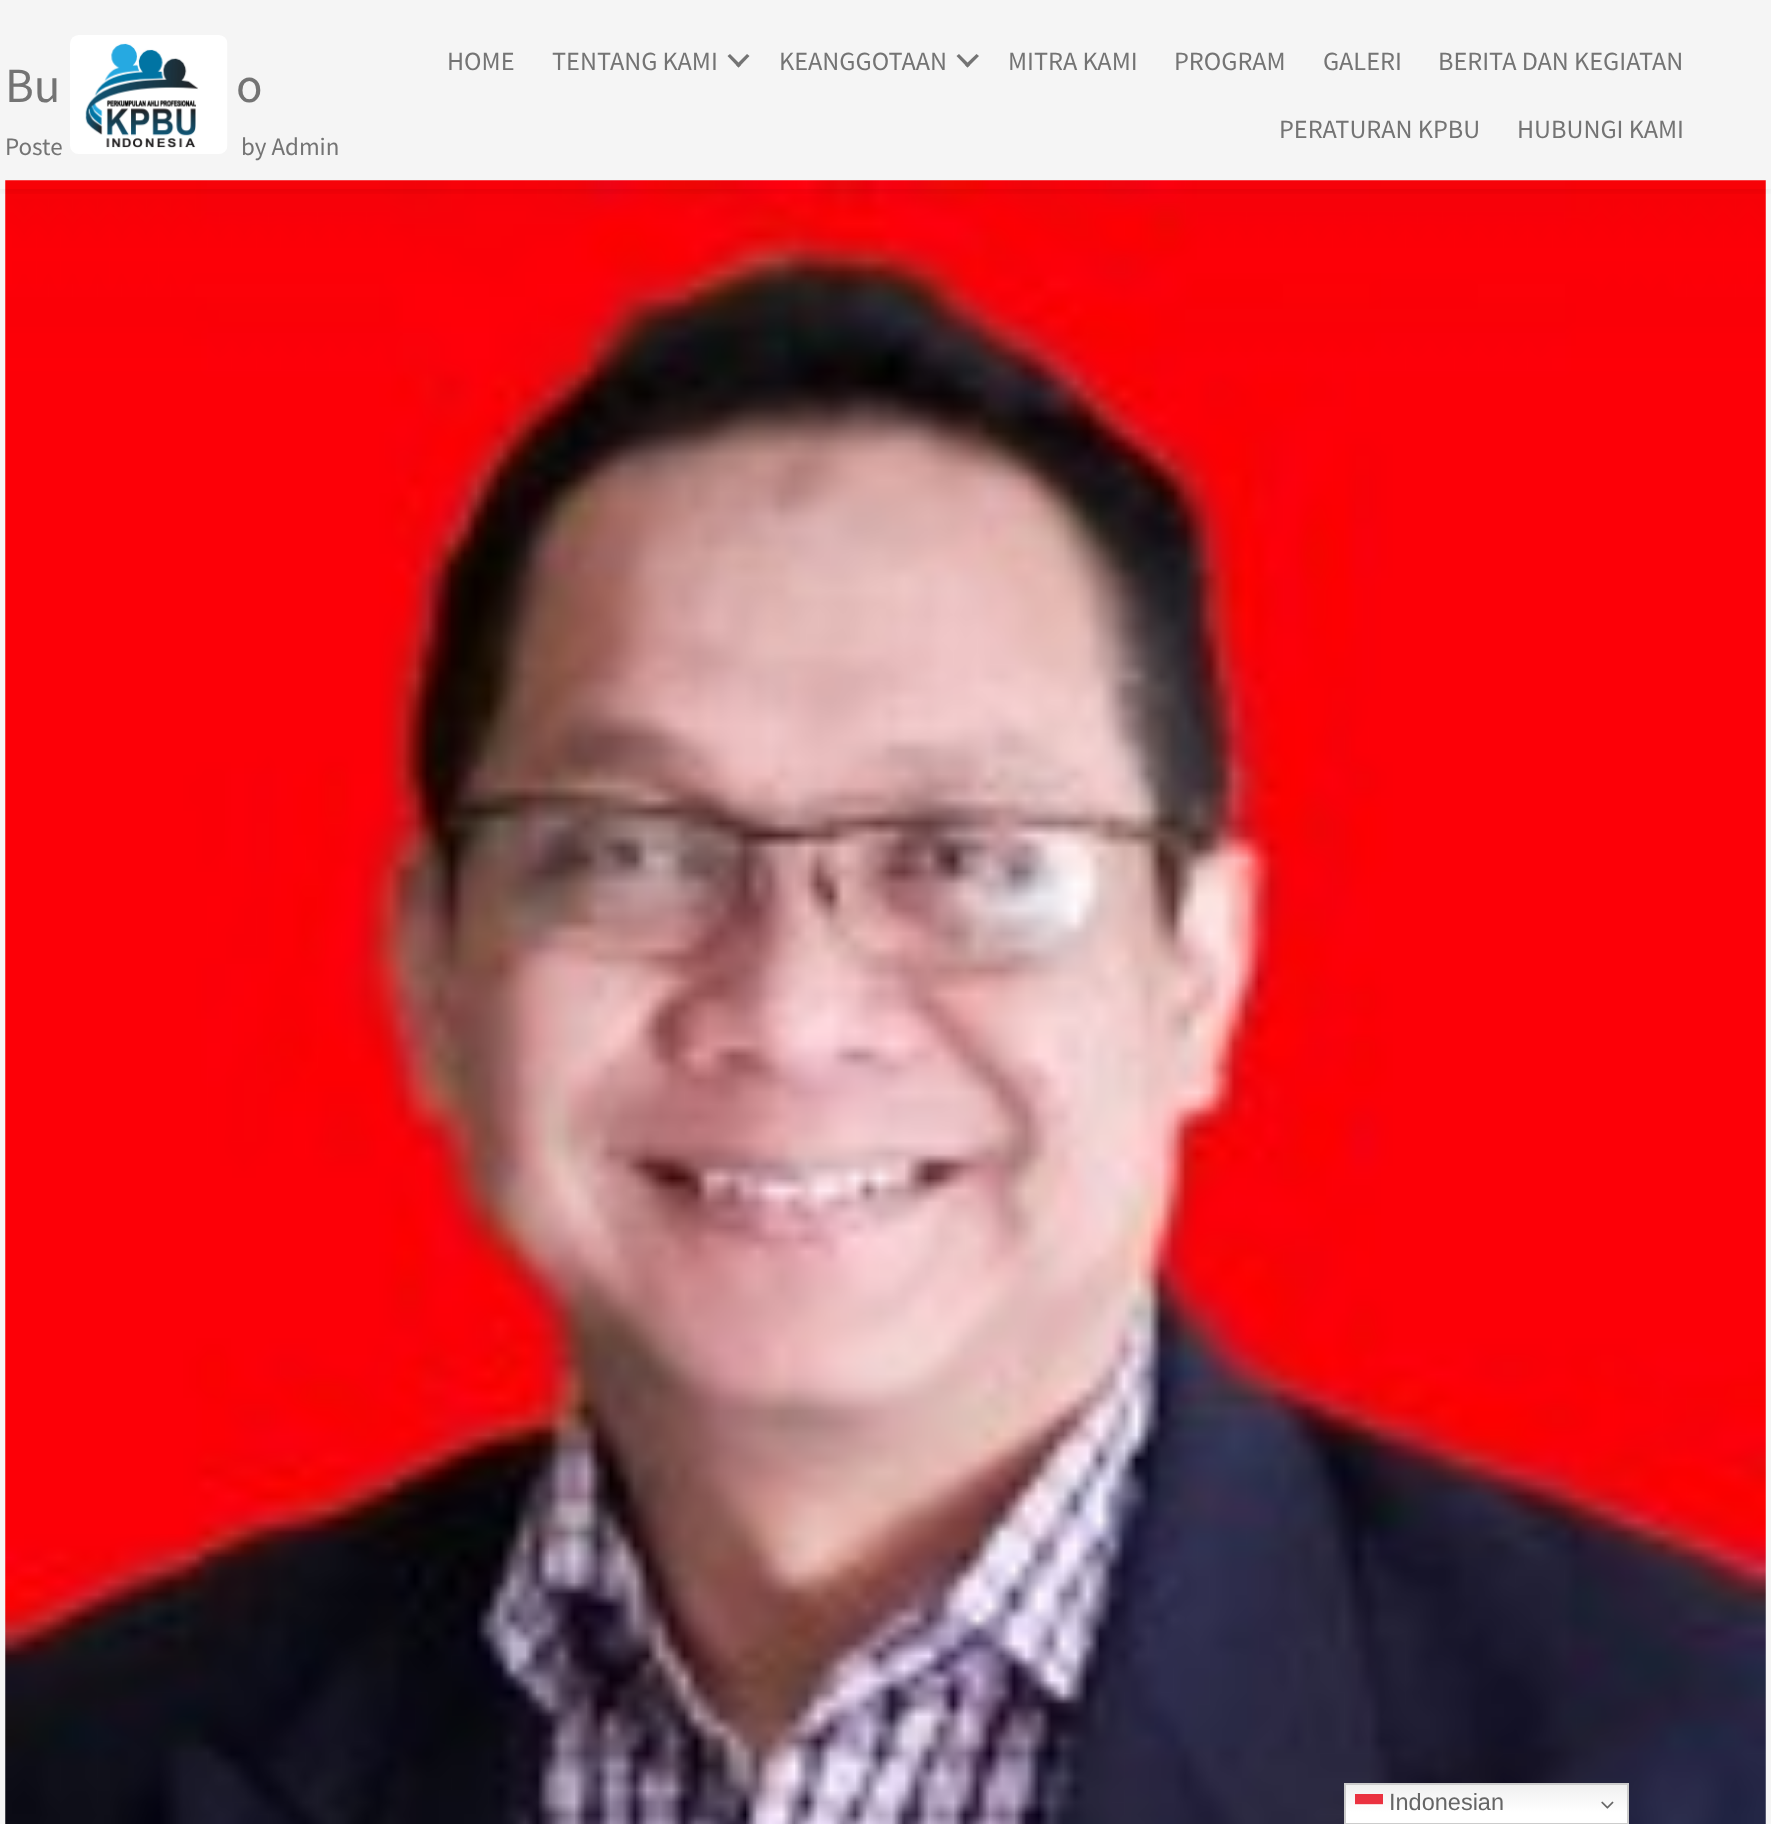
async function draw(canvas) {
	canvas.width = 1771;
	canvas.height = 1824;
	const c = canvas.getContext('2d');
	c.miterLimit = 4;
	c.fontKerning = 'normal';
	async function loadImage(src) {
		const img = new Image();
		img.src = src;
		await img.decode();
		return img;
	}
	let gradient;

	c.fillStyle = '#f5f5f5';
	c.fillRect(0, 0, 1771, 1824);
	c.font = '49px Source Sans Pro';
	c.fillStyle = '#747474';
	c.fillText('Bu', 5, 102);
	c.fillText('o', 236, 102);
	c.font = '25px Source Sans Pro';
	c.fillText('Poste', 5, 155);
	c.fillText('by Admin', 241, 155);
	c.drawImage(await loadImage('img1.png'), 5, 180, 1761, 1644);
	c.save();
	c.beginPath();
	c.rect(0, 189, 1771, 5);
	c.clip();
	c.fillStyle = '#00000017';
	c.filter = 'blur(7px)';
	c.beginPath();
	c.rect(0, 0, 1771, 189);
	c.fill();
	c.filter = 'none';
	c.restore();
	c.drawImage(await loadImage('img2.png'), 70, 35, 158, 119);
	c.font = '26.25px Source Sans Pro';
	c.fillText('HOME', 447, 70);
	c.fillText('TENTANG KAMI', 552, 70);
	c.beginPath();
	c.moveTo(747, 54);
	c.lineTo(749.5, 56);
	c.lineTo(738.5, 67.5);
	c.lineTo(736, 65);
	c.closePath();
	c.fill();
	c.beginPath();
	c.moveTo(730, 54);
	c.lineTo(741, 65);
	c.lineTo(738.5, 67.5);
	c.lineTo(727.5, 56);
	c.closePath();
	c.fill();
	c.fillText('KEANGGOTAAN', 779, 70);
	c.beginPath();
	c.moveTo(976.5, 54);
	c.lineTo(979, 56);
	c.lineTo(967.5, 67.5);
	c.lineTo(965, 65);
	c.closePath();
	c.fill();
	c.beginPath();
	c.moveTo(959, 54);
	c.lineTo(970, 65);
	c.lineTo(967.5, 67.5);
	c.lineTo(956.5, 56);
	c.closePath();
	c.fill();
	for (const [text, x, y] of [
		['MITRA KAMI', 1008, 70],
		['PROGRAM', 1174, 70],
		['GALERI', 1323, 70],
		['BERITA DAN KEGIATAN', 1438, 70],
		['PERATURAN KPBU', 1279, 138],
		['HUBUNGI KAMI', 1517, 138],
	]) {
		c.fillText(text, x, y);
	}
	gradient = c.createLinearGradient(1487, 1783, 1487, 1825);
	gradient.addColorStop(0, '#efefef');
	gradient.addColorStop(0.7, '#fff');
	c.fillStyle = gradient;
	c.fillRect(1346, 1785, 281, 38);
	c.strokeStyle = '#ccc';
	c.lineWidth = 2;
	c.strokeRect(1345, 1784, 283, 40);
	c.fillStyle = '#e70011cc';
	c.fillRect(1355, 1794, 28, 11);
	c.font = '23.5px Liberation Sans';
	c.fillStyle = '#666';
	c.fillText('Indonesian', 1389, 1810);
	c.drawImage(await loadImage('img3.png'), 1601, 1801, 13, 8);
	c.fillStyle = '#ffffffcc';
	c.fillRect(1355, 1804, 28, 2);
}

draw(document.querySelector('canvas'));
